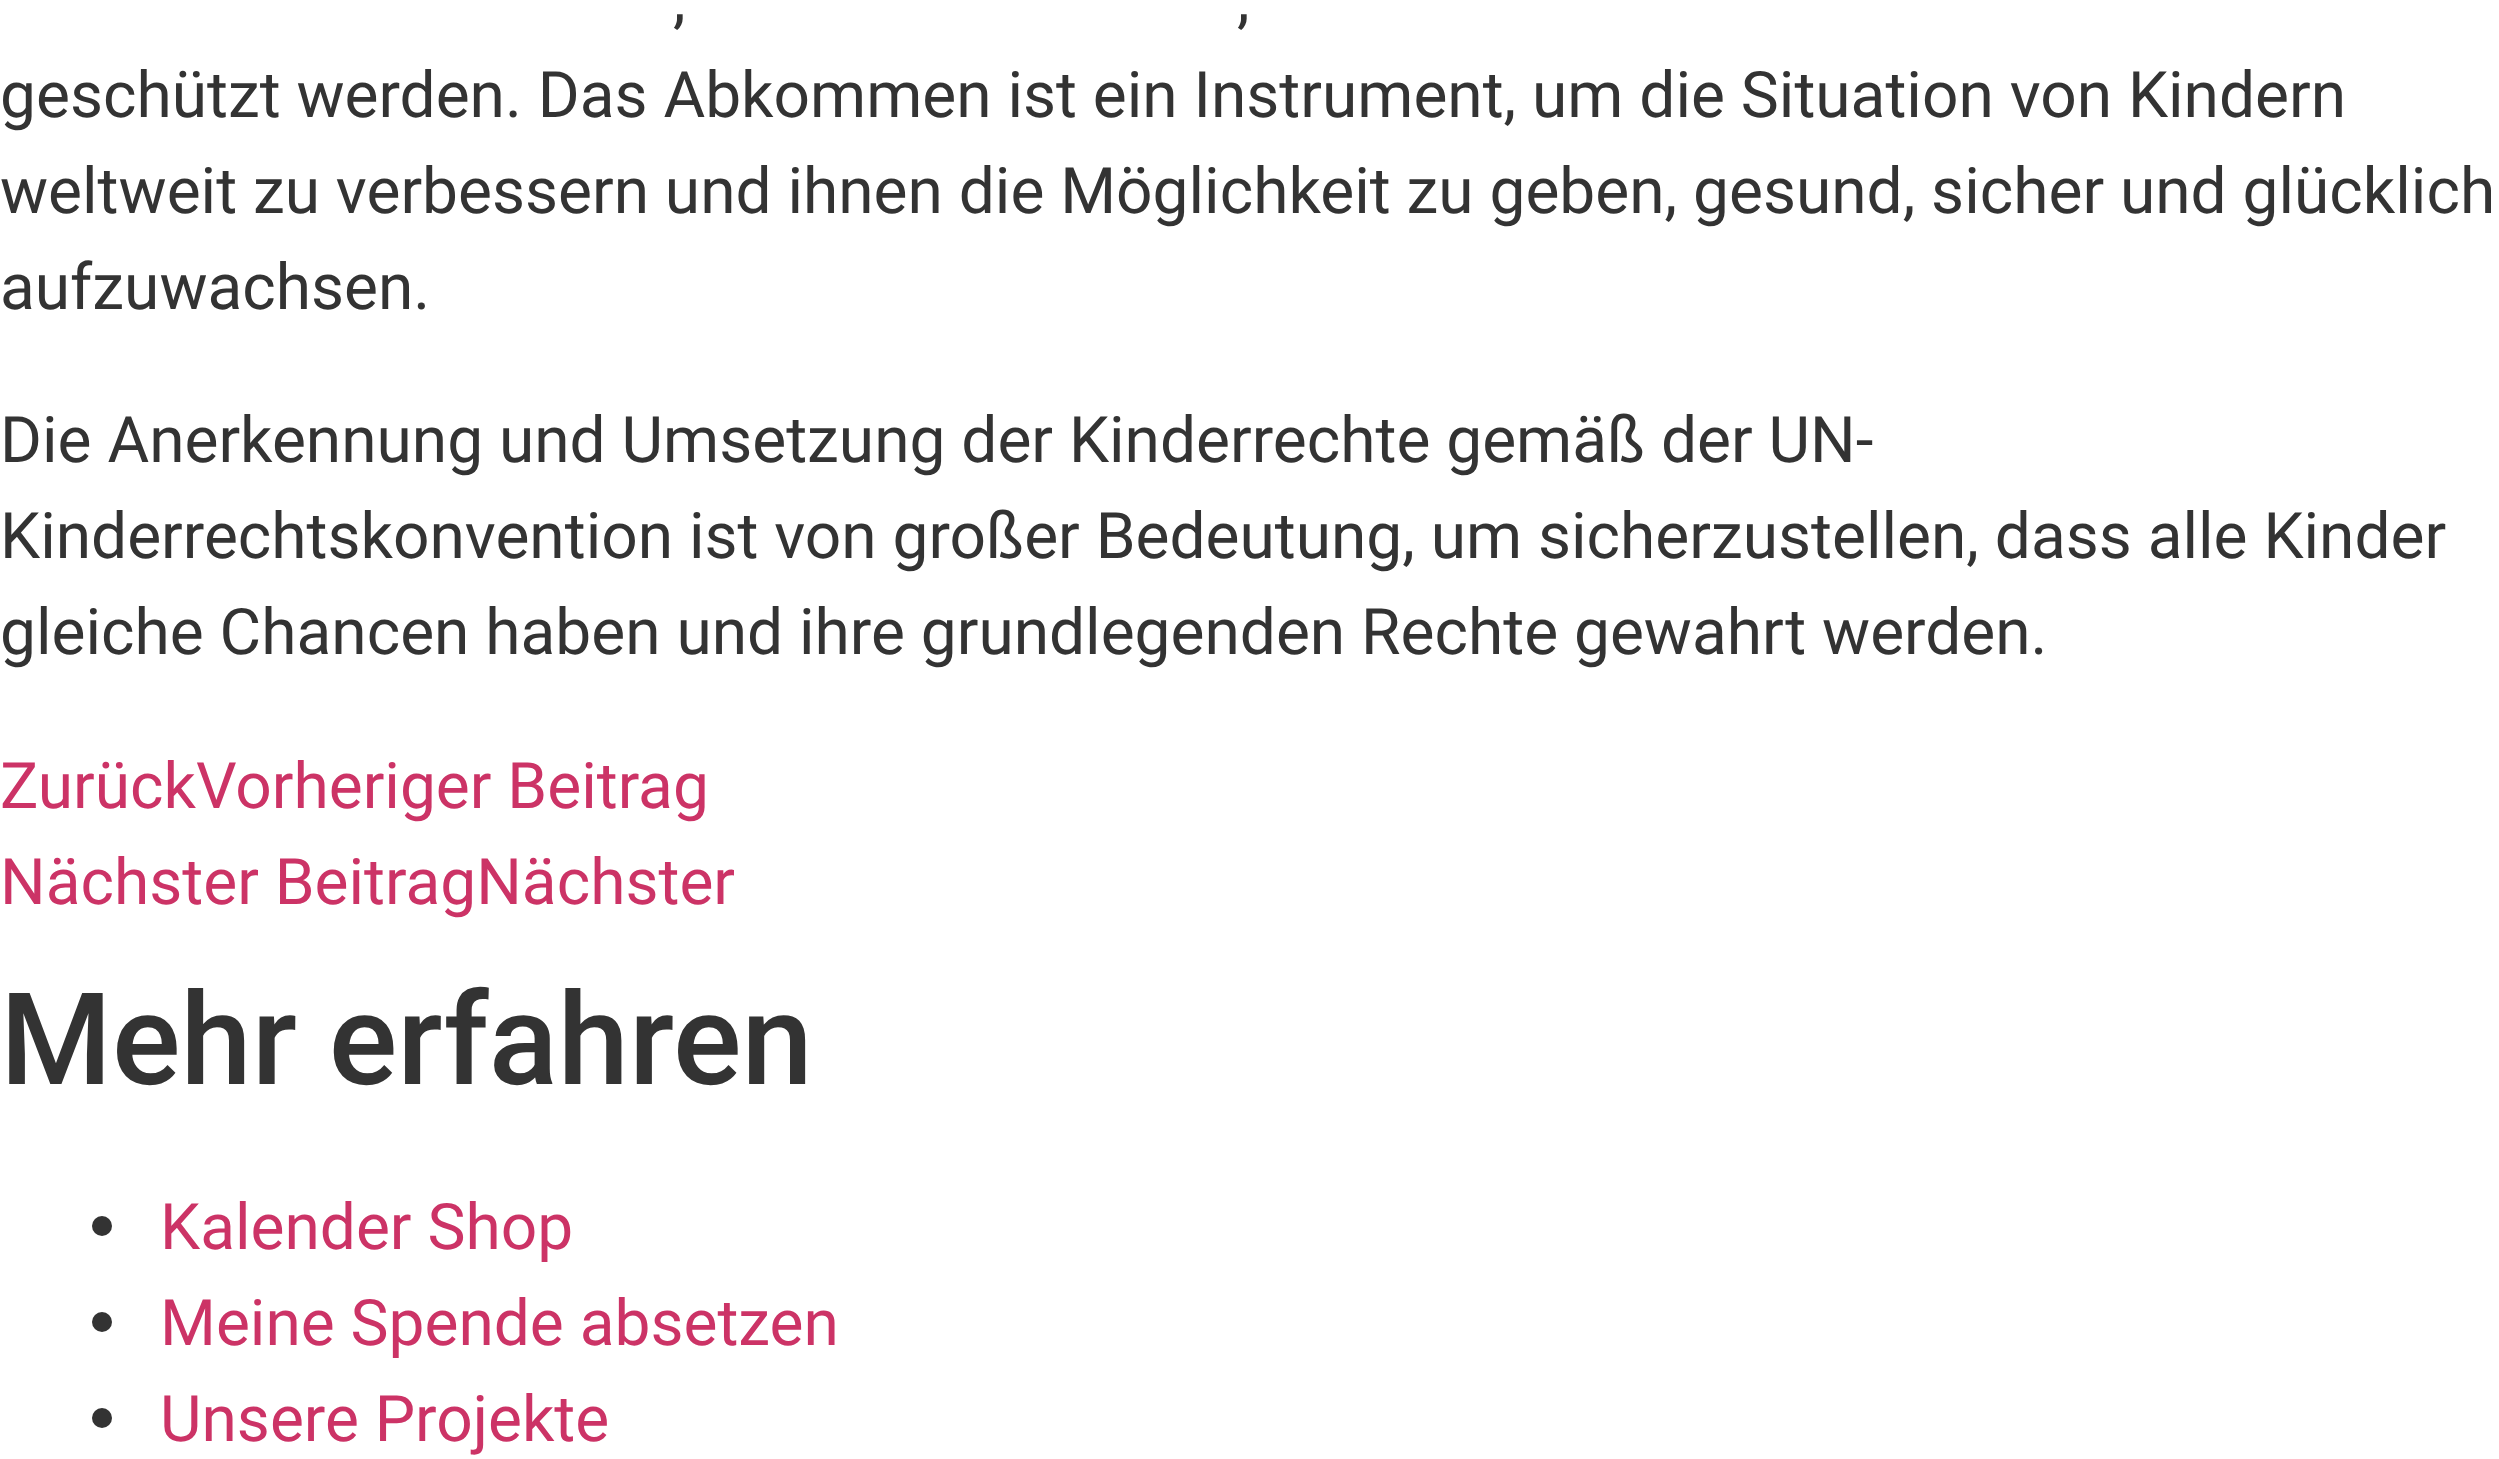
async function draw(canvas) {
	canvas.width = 2499;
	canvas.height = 1459;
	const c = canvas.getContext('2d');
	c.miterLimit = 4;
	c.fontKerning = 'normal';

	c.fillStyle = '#fff';
	c.fillRect(0, 0, 2499, 1459);
	c.font = '64px Roboto';
	c.fillStyle = '#333';
	for (const [text, x, y] of [
		[',', 673, 21],
		[',', 1237, 21],
		['geschützt werden. Das Abkommen ist ein Instrument, um die Situation von Kindern', 0, 117],
		['weltweit zu verbessern und ihnen die Möglichkeit zu geben, gesund, sicher und glücklich', 0, 213],
		['aufzuwachsen.', 0, 309],
		['Die Anerkennung und Umsetzung der Kinderrechte gemäß der UN-', 0, 462],
		['Kinderrechtskonvention ist von großer Bedeutung, um sicherzustellen, dass alle Kinder', 0, 558],
		['gleiche Chancen haben und ihre grundlegenden Rechte gewahrt werden.', 0, 654],
	]) {
		c.fillText(text, x, y);
	}
	c.fillStyle = '#c36';
	c.fillText('ZurückVorheriger Beitrag', 0, 808);
	c.fillText('Nächster BeitragNächster', 0, 904);
	c.font = '500 128px Roboto';
	c.fillStyle = '#333';
	c.fillText('Mehr erfahren', 0, 1084);
	c.beginPath();
	c.arc(102, 1226, 10, 0, 2 * Math.PI);
	c.fill();
	c.font = '64px Roboto';
	c.fillStyle = '#c36';
	c.fillText('Kalender Shop', 160, 1249);
	c.fillStyle = '#333';
	c.beginPath();
	c.arc(102, 1322, 10, 0, 2 * Math.PI);
	c.fill();
	c.fillStyle = '#c36';
	c.fillText('Meine Spende absetzen', 160, 1345);
	c.fillStyle = '#333';
	c.beginPath();
	c.arc(102, 1418, 10, 0, 2 * Math.PI);
	c.fill();
	c.fillStyle = '#c36';
	c.fillText('Unsere Projekte', 160, 1441);
}

draw(document.querySelector('canvas'));
